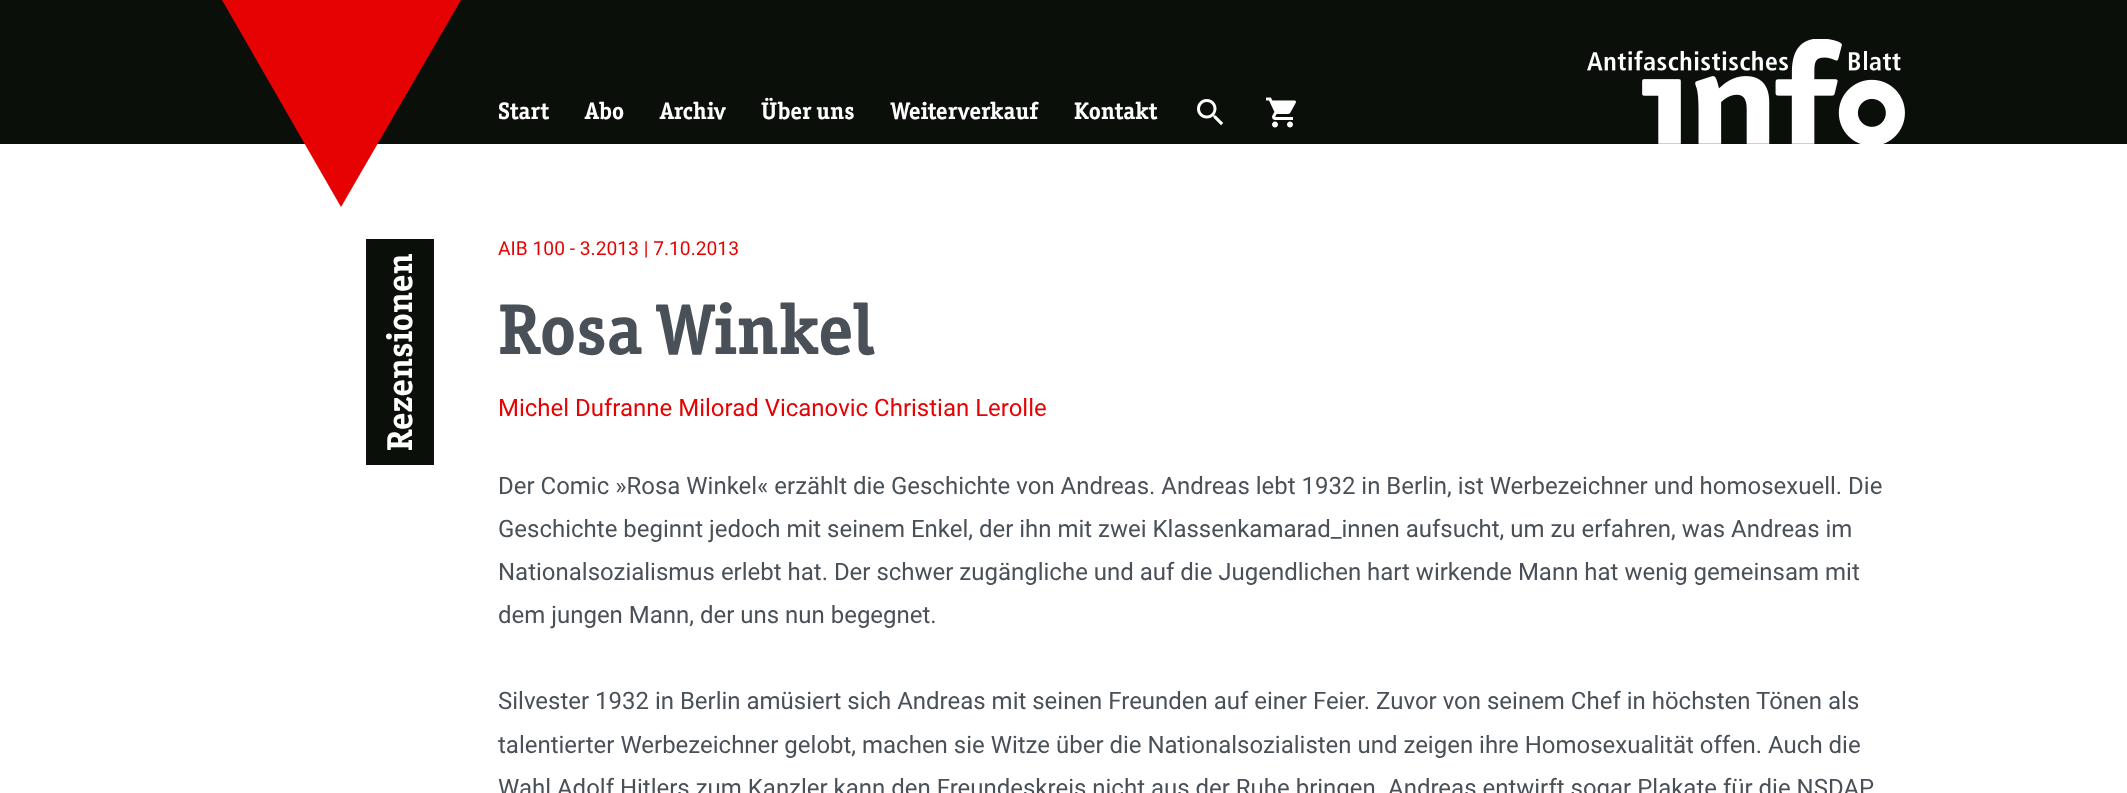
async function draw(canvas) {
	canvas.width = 2127;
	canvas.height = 793;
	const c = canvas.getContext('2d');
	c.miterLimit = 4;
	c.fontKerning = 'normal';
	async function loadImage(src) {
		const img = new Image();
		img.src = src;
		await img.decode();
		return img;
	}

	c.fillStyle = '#fff';
	c.fillRect(0, 0, 2127, 793);
	c.fillStyle = '#0a0f0a';
	c.fillRect(0, 0, 2127, 144);
	c.fillStyle = '#e60202';
	c.beginPath();
	c.moveTo(341, 207);
	c.lineTo(461, 0);
	c.lineTo(222, 0);
	c.closePath();
	c.fill();
	c.font = 'bold 24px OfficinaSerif';
	c.fillStyle = '#fff';
	for (const [text, x, y] of [
		['Start', 498, 119],
		['Abo', 585, 119],
		['Archiv', 660, 119],
		['Über uns', 761, 119],
		['Weiterverkauf', 891, 119],
		['Kontakt', 1074, 119],
	]) {
		c.fillText(text, x, y);
	}
	c.drawImage(await loadImage('img1.png'), 1197, 99, 27, 27);
	c.drawImage(await loadImage('img2.png'), 1265, 97, 31, 31);
	c.drawImage(await loadImage('img3.png'), 1587, 39, 318, 105);
	c.fillStyle = '#0a0f0a';
	c.fillRect(366, 239, 68, 226);
	c.font = 'bold 36px OfficinaSerif';
	c.fillStyle = '#fff';
	c.save();
	c.translate(412, 451);
	c.rotate(-90 * Math.PI / 180);
	c.fillText('Rezensionen', 0, 0);
	c.restore();
	c.font = 'italic 19.25px Roboto';
	c.fillStyle = '#e60202';
	c.fillText('AIB 100 - 3.2013 | 7.10.2013', 498, 255);
	c.font = 'bold 72px OfficinaSerif';
	c.fillStyle = '#495057';
	c.fillText('Rosa Winkel', 498, 354);
	c.font = 'italic 24px Roboto';
	c.fillStyle = '#e60202';
	c.fillText('Michel Dufranne Milorad Vicanovic Christian Lerolle', 498, 416);
	c.fillStyle = '#495057';
	for (const [text, x, y] of [
		['Der Comic »Rosa Winkel« erzählt die Geschichte von Andreas. Andreas lebt 1932 in Berlin, ist Werbezeichner und homosexuell. Die', 498, 494],
		['Geschichte beginnt jedoch mit seinem Enkel, der ihn mit zwei Klassenkamarad_innen aufsucht, um zu erfahren, was Andreas im', 498, 537],
		['Nationalsozialismus erlebt hat. Der schwer zugängliche und auf die Jugendlichen hart wirkende Mann hat wenig gemeinsam mit', 498, 580],
		['dem jungen Mann, der uns nun begegnet.', 498, 623],
		['Silvester 1932 in Berlin amüsiert sich Andreas mit seinen Freunden auf einer Feier. Zuvor von seinem Chef in höchsten Tönen als', 498, 709],
		['talentierter Werbezeichner gelobt, machen sie Witze über die Nationalsozialisten und zeigen ihre Homosexualität offen. Auch die', 498, 753],
		['Wahl Adolf Hitlers zum Kanzler kann den Freundeskreis nicht aus der Ruhe bringen. Andreas entwirft sogar Plakate für die NSDAP.', 498, 796],
	]) {
		c.fillText(text, x, y);
	}
}

draw(document.querySelector('canvas'));
